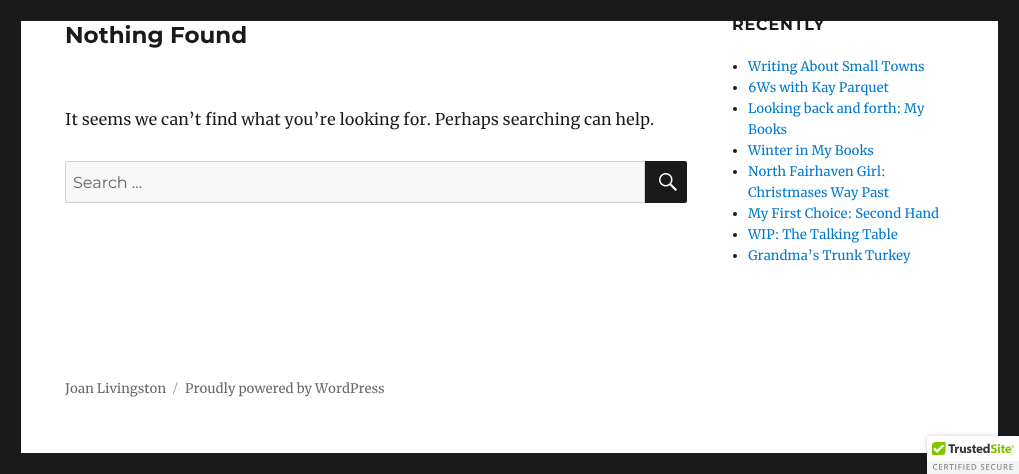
async function draw(canvas) {
	canvas.width = 1019;
	canvas.height = 474;
	const c = canvas.getContext('2d');
	c.miterLimit = 4;
	c.fontKerning = 'normal';
	async function loadImage(src) {
		const img = new Image();
		img.src = src;
		await img.decode();
		return img;
	}

	c.fillStyle = '#1a1a1a';
	c.fillRect(0, 0, 1019, 474);
	c.fillStyle = '#fff';
	c.fillRect(21, 21, 977, 432);
	c.font = '100 23px Montserrat';
	c.fillStyle = '#1a1a1a';
	c.fillText('Nothing Found', 65, 43);
	c.font = '16px Merriweather';
	c.fillText('It seems we can’t find what you’re looking for. Perhaps searching can help.', 65, 125);
	c.fillStyle = '#f7f7f7';
	c.beginPath();
	c.roundRect(65.5, 161.5, 579, 41, [1.5, 0, 0, 1.5]);
	c.fill();
	c.strokeStyle = '#d1d1d1';
	c.stroke();
	c.font = '100 16px "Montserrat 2"';
	c.fillStyle = '#686868';
	c.fillText('Search …', 73, 188);
	c.fillStyle = '#1a1a1a';
	c.beginPath();
	c.roundRect(645, 161, 42, 42, [0, 2, 2, 0]);
	c.fill();
	c.drawImage(await loadImage('img1.png'), 659, 173, 18, 18);
	c.letterSpacing = '0.75px';
	c.font = '100 16px Montserrat';
	c.fillText('RECENTLY', 732, 30);
	c.beginPath();
	c.arc(735, 67, 2, 0, 2 * Math.PI);
	c.fill();
	c.letterSpacing = '0px';
	c.font = '13px Merriweather';
	c.fillStyle = '#007acc';
	c.fillText('Writing About Small Towns', 748, 71);
	c.fillStyle = '#1a1a1a';
	c.beginPath();
	c.arc(735, 88, 2, 0, 2 * Math.PI);
	c.fill();
	c.fillStyle = '#007acc';
	c.fillText('6Ws with Kay Parquet', 748, 92);
	c.fillStyle = '#1a1a1a';
	c.beginPath();
	c.arc(735, 109, 2, 0, 2 * Math.PI);
	c.fill();
	c.fillStyle = '#007acc';
	c.fillText('Looking back and forth: My', 748, 113);
	c.fillText('Books', 748, 134);
	c.fillStyle = '#1a1a1a';
	c.beginPath();
	c.arc(735, 151, 2, 0, 2 * Math.PI);
	c.fill();
	c.fillStyle = '#007acc';
	c.fillText('Winter in My Books', 748, 155);
	c.fillStyle = '#1a1a1a';
	c.beginPath();
	c.arc(735, 172, 2, 0, 2 * Math.PI);
	c.fill();
	c.fillStyle = '#007acc';
	c.fillText('North Fairhaven Girl:', 748, 176);
	c.fillText('Christmases Way Past', 748, 197);
	c.fillStyle = '#1a1a1a';
	c.beginPath();
	c.arc(735, 214, 2, 0, 2 * Math.PI);
	c.fill();
	c.fillStyle = '#007acc';
	c.fillText('My First Choice: Second Hand', 748, 218);
	c.fillStyle = '#1a1a1a';
	c.beginPath();
	c.arc(735, 235, 2, 0, 2 * Math.PI);
	c.fill();
	c.fillStyle = '#007acc';
	c.fillText('WIP: The Talking Table', 748, 239);
	c.fillStyle = '#1a1a1a';
	c.beginPath();
	c.arc(735, 256, 2, 0, 2 * Math.PI);
	c.fill();
	c.fillStyle = '#007acc';
	c.fillText('Grandma’s Trunk Turkey', 748, 260);
	c.fillStyle = '#686868';
	c.fillText('Joan Livingston', 65, 393);
	c.font = '100 13px "Montserrat 2"';
	c.fillStyle = '#959595';
	c.fillText('/', 173, 393);
	c.font = '13px Merriweather';
	c.fillStyle = '#686868';
	c.fillText('Proudly powered by WordPress', 185, 393);
	c.fillStyle = '#00000033';
	c.filter = 'blur(2.5px)';
	c.beginPath();
	c.roundRect(927, 436, 92, 38, 2);
	c.fill();
	c.filter = 'none';
	c.fillStyle = '#fff';
	c.beginPath();
	c.roundRect(927, 436, 92, 38, [2, 0, 0, 0]);
	c.fill();
	c.drawImage(await loadImage('img2.png'), 927, 436, 92, 38);
}

draw(document.querySelector('canvas'));
